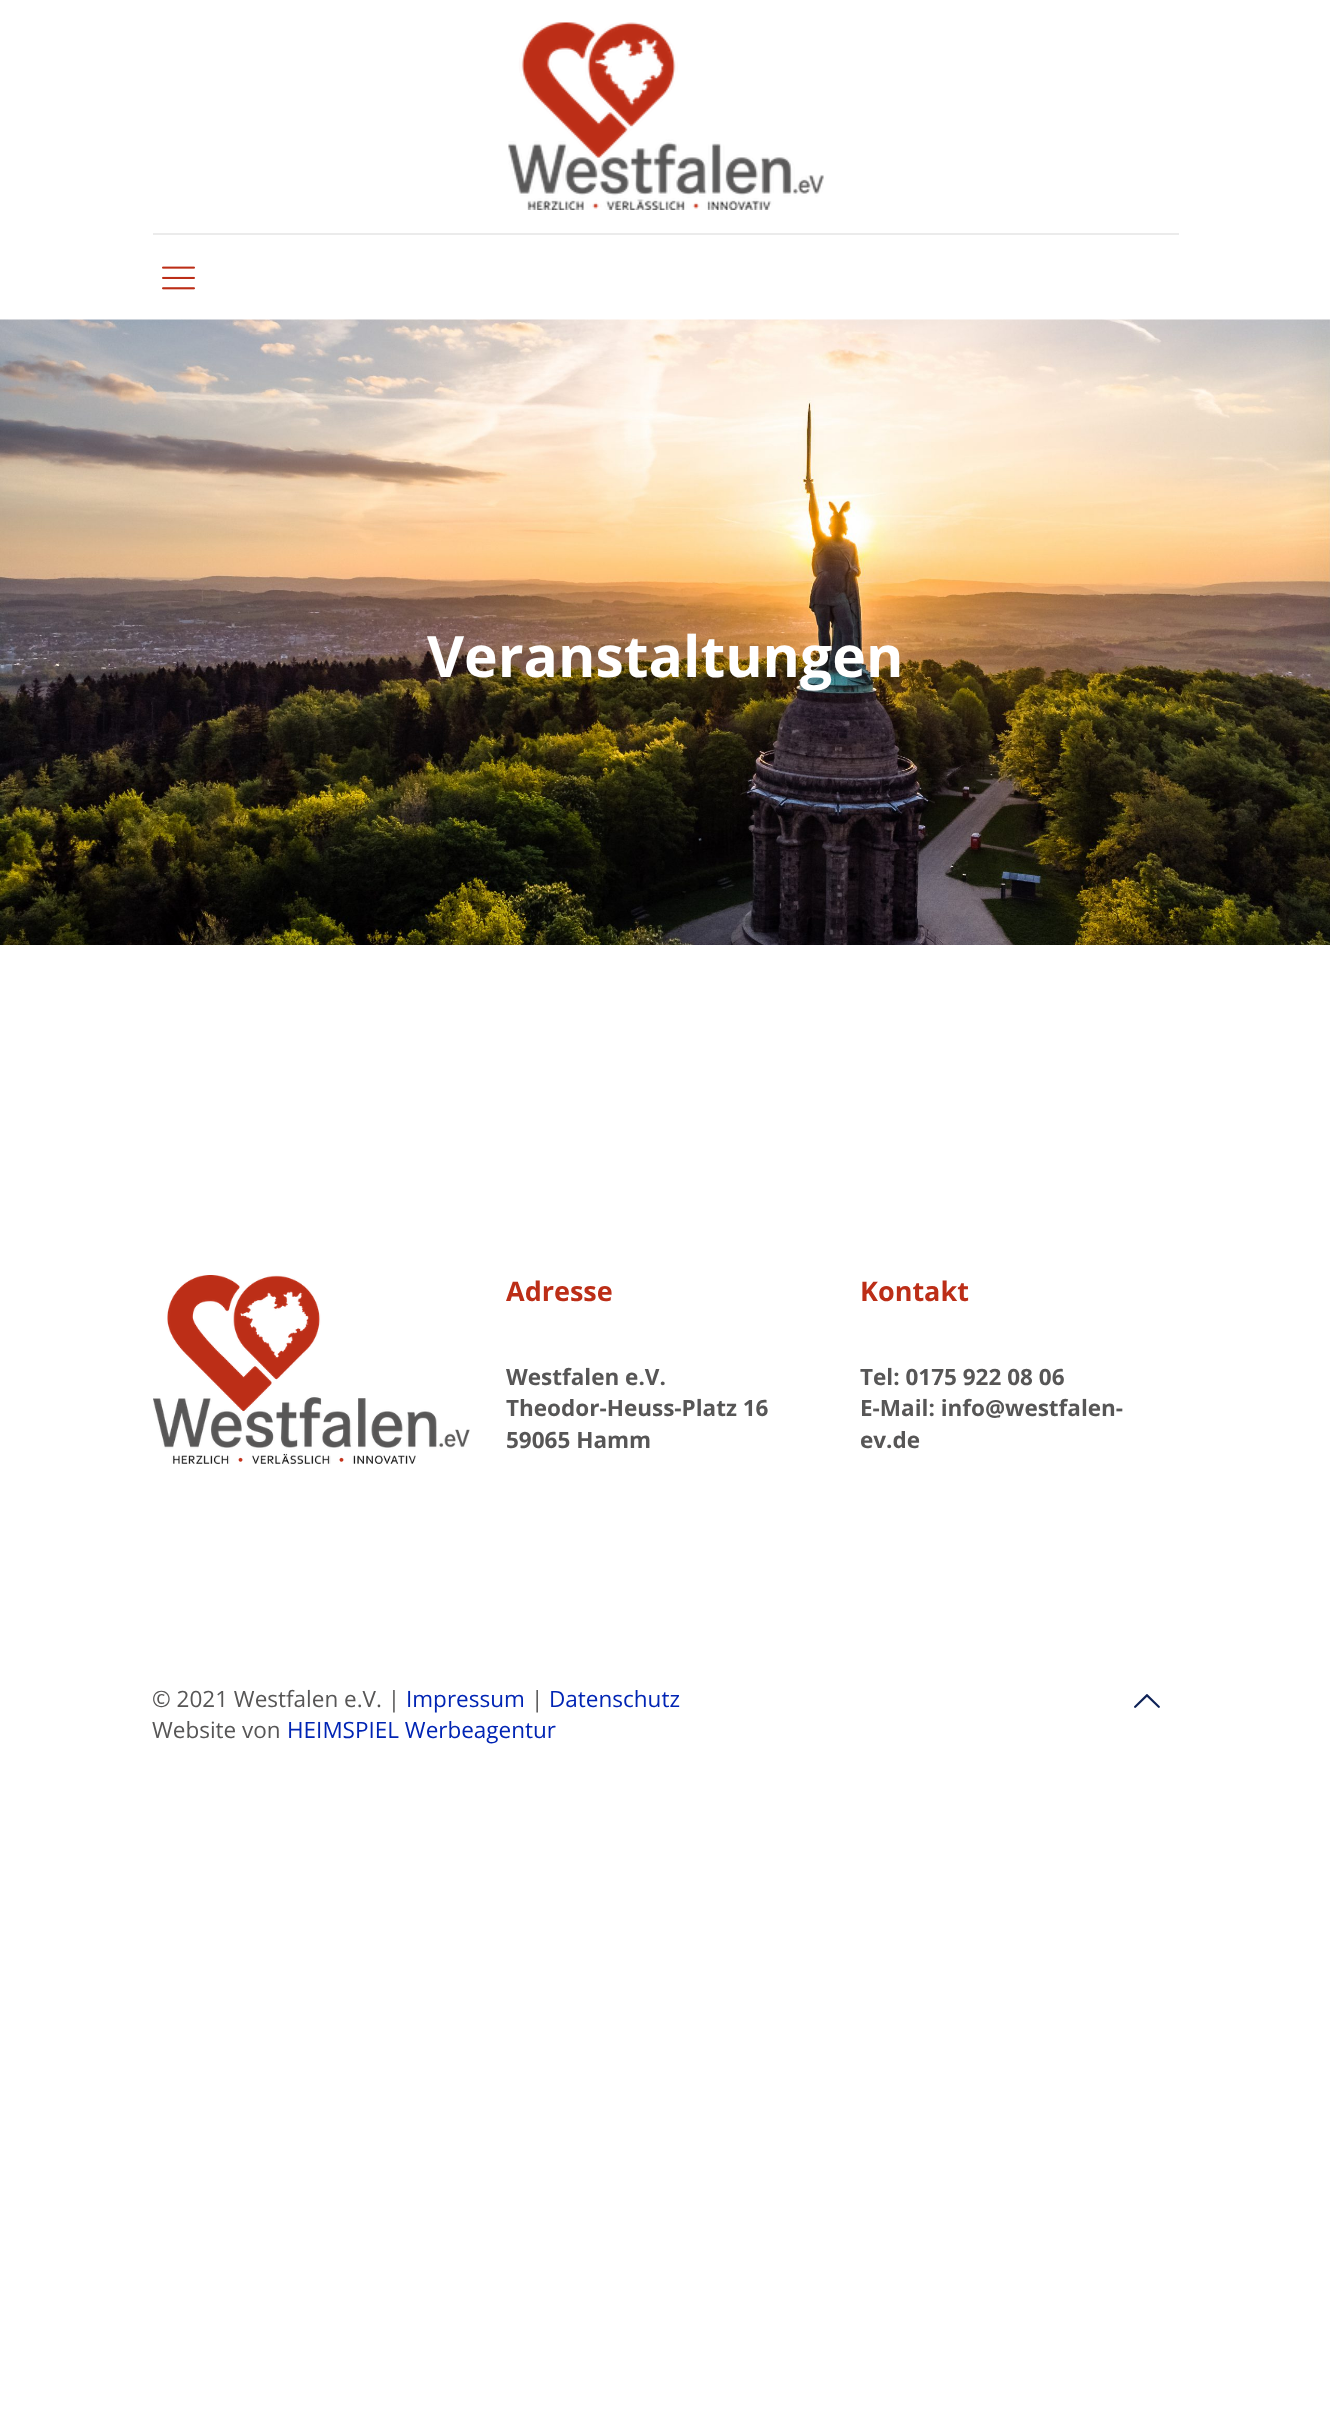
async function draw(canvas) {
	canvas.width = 1330;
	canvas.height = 2436;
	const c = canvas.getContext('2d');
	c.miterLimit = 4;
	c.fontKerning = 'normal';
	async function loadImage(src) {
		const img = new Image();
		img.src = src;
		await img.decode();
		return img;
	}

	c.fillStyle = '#fff';
	c.fillRect(0, 0, 1330, 2436);
	c.fillStyle = '#ebebeb';
	c.fillRect(153, 233, 1026, 2);
	c.drawImage(await loadImage('img1.png'), 508, 22, 316, 188);
	c.drawImage(await loadImage('img2.png'), 162, 266, 33, 24);
	c.drawImage(await loadImage('img3.png'), 0, 319, 1330, 626);
	c.font = 'bold 57px Open Sans';
	c.fillStyle = '#fff';
	c.fillText('Veranstaltungen', 427, 677);
	c.drawImage(await loadImage('img4.png'), 153, 1275, 317, 189);
	c.font = 'bold 27px Open Sans';
	c.fillStyle = '#bc2e17';
	c.fillText('Adresse', 506, 1301);
	c.font = 'bold 22.5px Open Sans';
	c.fillStyle = '#575656';
	for (const [text, x, y] of [
		['Westfalen e.V.', 506, 1385],
		['Theodor-Heuss-Platz 16', 506, 1416],
		['59065 Hamm', 506, 1448],
	]) {
		c.fillText(text, x, y);
	}
	c.font = 'bold 27px Open Sans';
	c.fillStyle = '#bc2e17';
	c.fillText('Kontakt', 860, 1301);
	c.font = 'bold 22.5px Open Sans';
	c.fillStyle = '#575656';
	for (const [text, x, y] of [
		['Tel: 0175 922 08 06', 860, 1385],
		['E-Mail: info@westfalen-', 860, 1416],
		['ev.de', 860, 1448],
	]) {
		c.fillText(text, x, y);
	}
	c.font = '22.5px Open Sans';
	c.fillText('© 2021 Westfalen e.V. |', 152, 1707);
	c.fillStyle = '#0024b4';
	c.fillText('Impressum', 406, 1707);
	c.fillStyle = '#575656';
	c.fillText('|', 531, 1707);
	c.fillStyle = '#0024b4';
	c.fillText('Datenschutz', 549, 1707);
	c.fillStyle = '#575656';
	c.fillText('Website von', 152, 1738);
	c.fillStyle = '#0024b4';
	c.fillText('HEIMSPIEL Werbeagentur', 287, 1738);
	c.drawImage(await loadImage('img5.png'), 1134, 1694, 26, 14);
}

draw(document.querySelector('canvas'));
